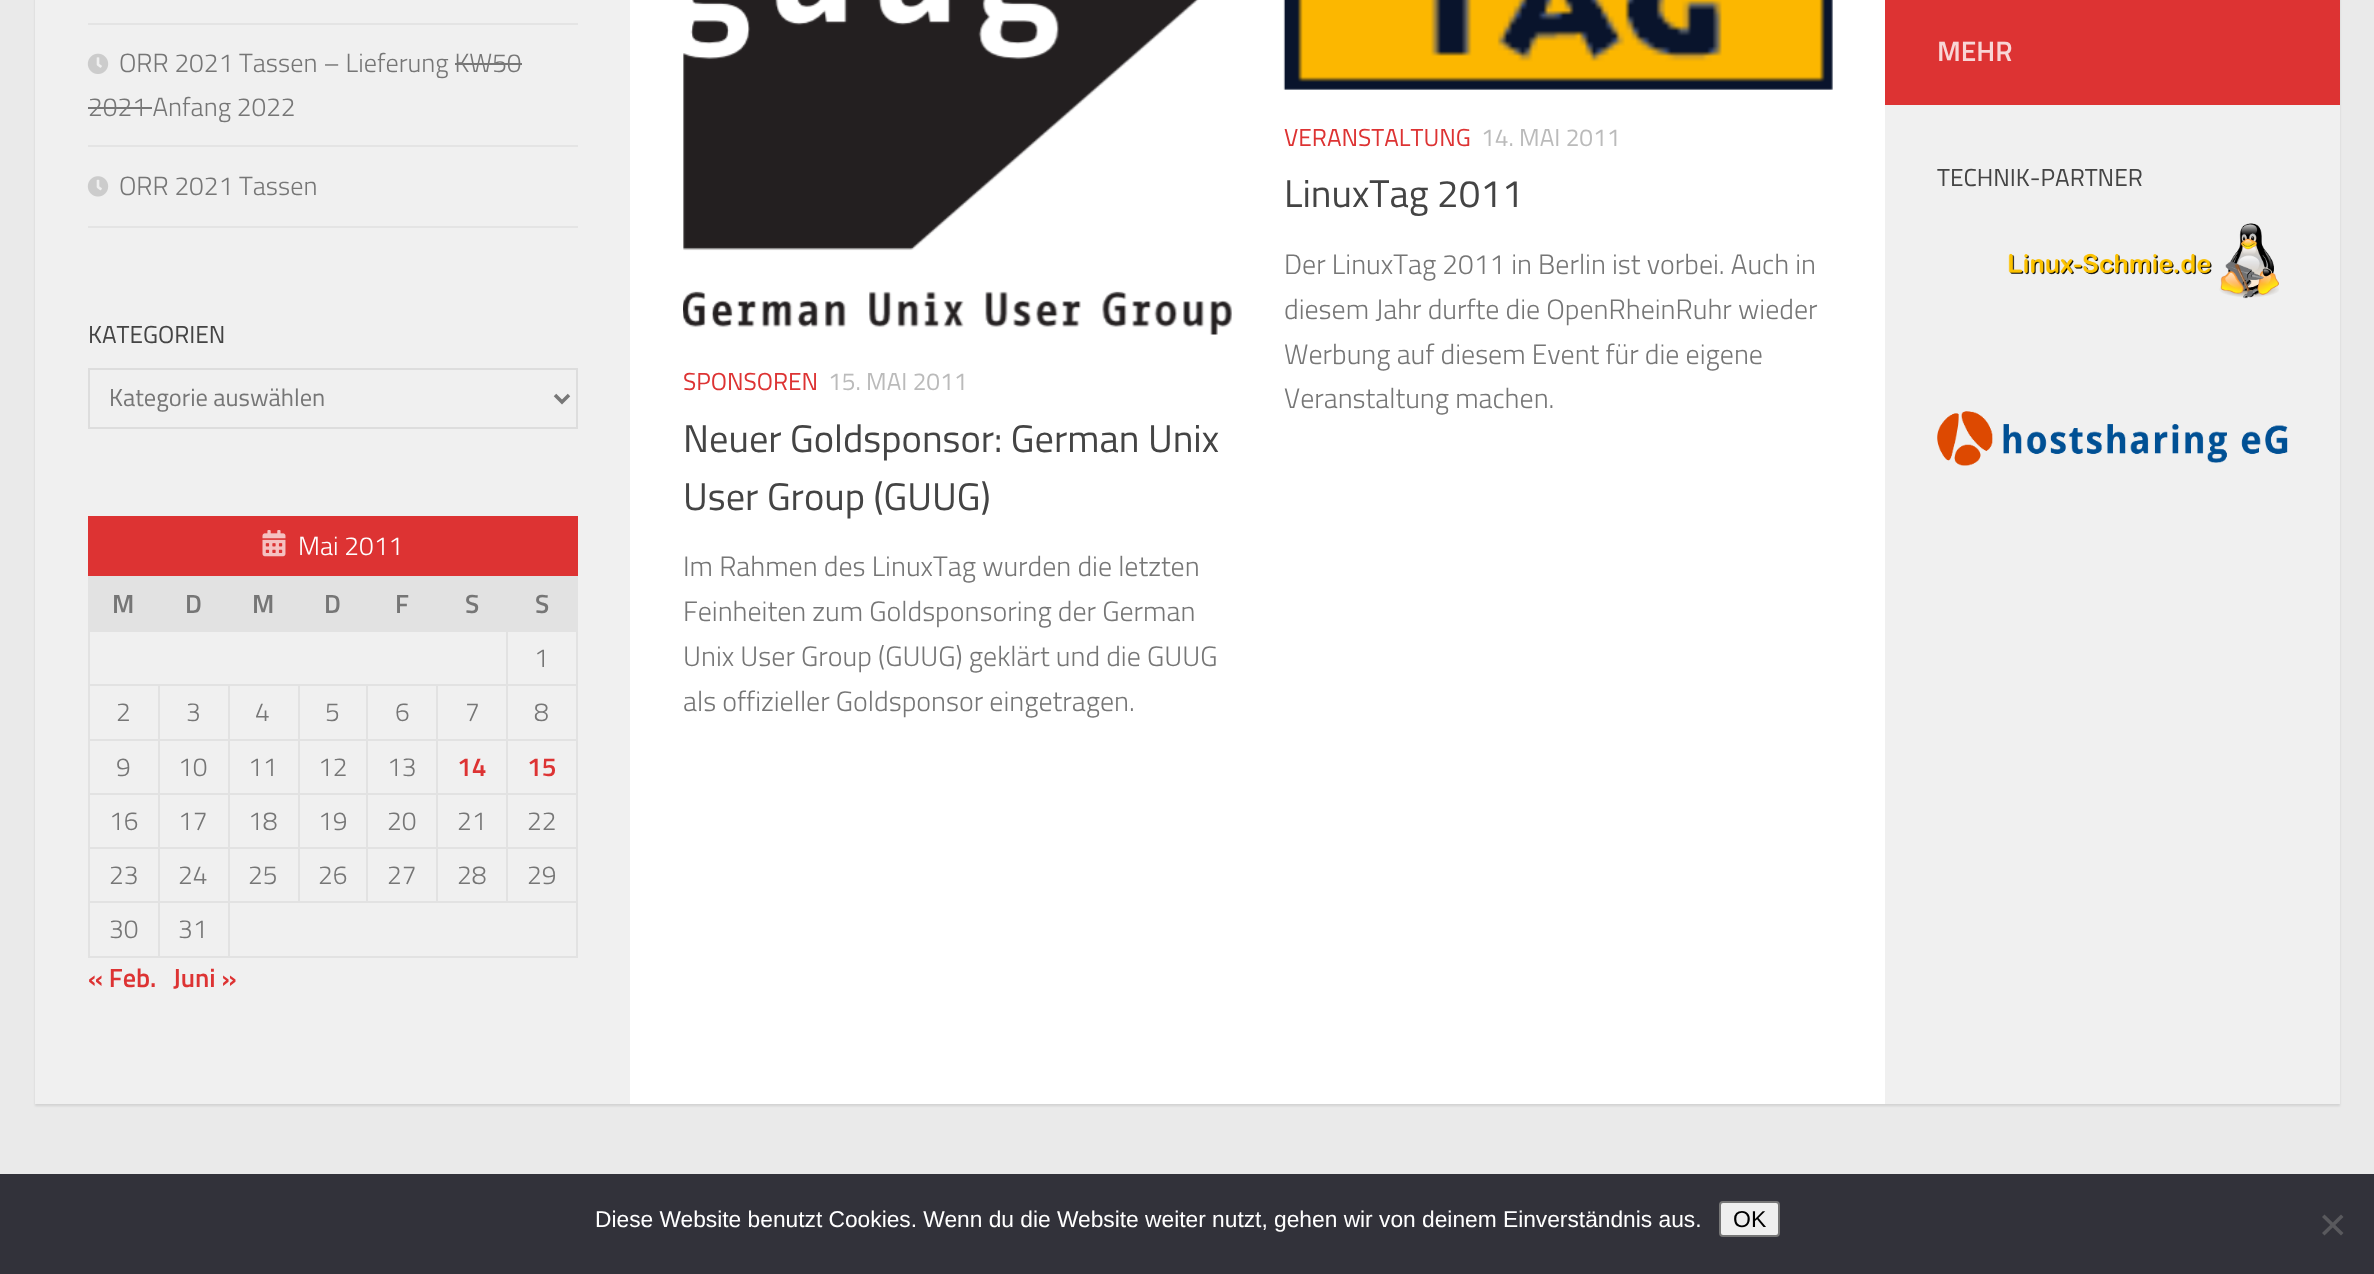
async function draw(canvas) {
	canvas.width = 2374;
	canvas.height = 1274;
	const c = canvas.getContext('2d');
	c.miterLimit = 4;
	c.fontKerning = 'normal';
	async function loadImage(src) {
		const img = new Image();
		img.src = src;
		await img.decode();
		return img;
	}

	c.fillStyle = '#eaeaea';
	c.fillRect(0, 0, 2374, 1274);
	c.fillStyle = '#0000001a';
	c.filter = 'blur(1px)';
	c.beginPath();
	c.rect(35, -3, 2305, 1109);
	c.fill();
	c.filter = 'none';
	for (const [x, y, w, h, color] of [
		[630, 0, 1255, 1104, '#fff'],
		[35, 0, 595, 1104, '#f0f0f0'],
		[88, 23, 490, 2, '#e4e4e4'],
		[88, 145, 490, 2, '#e4e4e4'],
	]) {
		c.fillStyle = color;
		c.fillRect(x, y, w, h);
	}
	c.drawImage(await loadImage('img1.png'), 87, 53, 22, 21);
	c.font = '300 26.25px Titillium';
	c.fillStyle = '#767676';
	c.fillText('ORR 2021 Tassen – Lieferung KW50', 119, 72);
	c.fillText('2021 Anfang 2022', 88, 116);
	for (const [x, y, w, h, color] of [
		[455, 63, 67, 2, '#777'],
		[88, 107, 64, 2, '#777'],
		[88, 226, 490, 2, '#e4e4e4'],
	]) {
		c.fillStyle = color;
		c.fillRect(x, y, w, h);
	}
	c.drawImage(await loadImage('img2.png'), 87, 176, 22, 21);
	c.fillStyle = '#767676';
	c.fillText('ORR 2021 Tassen', 119, 195);
	c.font = '24.5px Titillium';
	c.fillStyle = '#444';
	c.fillText('KATEGORIEN', 88, 343);
	c.strokeStyle = '#ddd';
	c.lineWidth = 2;
	c.strokeRect(89, 369, 488, 59);
	c.beginPath();
	c.moveTo(555, 395);
	c.lineTo(562, 402);
	c.lineTo(569, 395);
	c.strokeStyle = '#777';
	c.lineWidth = 3.5;
	c.stroke();
	c.fillStyle = '#767676';
	c.fillText('Kategorie auswählen', 109, 406);
	c.fillStyle = '#d33';
	c.fillRect(88, 516, 490, 60);
	c.drawImage(await loadImage('img3.png'), 262, 530, 24, 27);
	c.font = '300 26.25px Titillium';
	c.fillStyle = '#fff';
	c.fillText('Mai 2011', 298, 555);
	for (const [x, y, w, h, color] of [
		[90, 578, 488, 52, '#e2e2e2'],
		[88, 576, 490, 2, '#e2e2e2'],
		[506, 630, 72, 2, '#e2e2e2'],
		[506, 684, 72, 2, '#e2e2e2'],
		[506, 739, 72, 2, '#e2e2e2'],
		[506, 793, 72, 2, '#e2e2e2'],
		[506, 847, 72, 2, '#e2e2e2'],
		[228, 901, 350, 2, '#e2e2e2'],
		[506, 847, 2, 56, '#e2e2e2'],
		[436, 847, 72, 2, '#e2e2e2'],
		[506, 793, 2, 56, '#e2e2e2'],
		[436, 793, 72, 2, '#e2e2e2'],
		[506, 739, 2, 56, '#e2e2e2'],
		[436, 739, 72, 2, '#e2e2e2'],
		[506, 684, 2, 56, '#e2e2e2'],
		[436, 684, 72, 2, '#e2e2e2'],
		[506, 630, 2, 56, '#e2e2e2'],
		[88, 630, 420, 2, '#e2e2e2'],
		[436, 847, 2, 56, '#e2e2e2'],
		[366, 847, 72, 2, '#e2e2e2'],
		[436, 793, 2, 56, '#e2e2e2'],
		[366, 793, 72, 2, '#e2e2e2'],
		[436, 739, 2, 56, '#e2e2e2'],
		[366, 739, 72, 2, '#e2e2e2'],
		[436, 684, 2, 56, '#e2e2e2'],
		[366, 684, 72, 2, '#e2e2e2'],
		[366, 847, 2, 56, '#e2e2e2'],
		[298, 847, 70, 2, '#e2e2e2'],
		[366, 793, 2, 56, '#e2e2e2'],
		[298, 793, 70, 2, '#e2e2e2'],
		[366, 739, 2, 56, '#e2e2e2'],
		[298, 739, 70, 2, '#e2e2e2'],
		[366, 684, 2, 56, '#e2e2e2'],
		[298, 684, 70, 2, '#e2e2e2'],
		[298, 847, 2, 56, '#e2e2e2'],
		[228, 847, 71, 2, '#e2e2e2'],
		[298, 793, 2, 56, '#e2e2e2'],
		[228, 793, 71, 2, '#e2e2e2'],
		[298, 739, 2, 56, '#e2e2e2'],
		[228, 739, 71, 2, '#e2e2e2'],
		[298, 684, 2, 56, '#e2e2e2'],
		[228, 684, 71, 2, '#e2e2e2'],
		[576, 901, 2, 56, '#e2e2e2'],
		[228, 956, 350, 2, '#e2e2e2'],
		[228, 901, 2, 56, '#e2e2e2'],
		[158, 901, 71, 2, '#e2e2e2'],
		[228, 847, 2, 56, '#e2e2e2'],
		[158, 847, 71, 2, '#e2e2e2'],
		[228, 793, 2, 56, '#e2e2e2'],
		[158, 793, 71, 2, '#e2e2e2'],
		[228, 739, 2, 56, '#e2e2e2'],
		[158, 739, 71, 2, '#e2e2e2'],
		[228, 684, 2, 56, '#e2e2e2'],
		[158, 684, 71, 2, '#e2e2e2'],
		[158, 956, 71, 2, '#e2e2e2'],
		[158, 901, 2, 56, '#e2e2e2'],
		[88, 901, 71, 2, '#e2e2e2'],
		[158, 847, 2, 56, '#e2e2e2'],
		[88, 847, 71, 2, '#e2e2e2'],
		[158, 793, 2, 56, '#e2e2e2'],
		[88, 793, 71, 2, '#e2e2e2'],
		[158, 739, 2, 56, '#e2e2e2'],
		[88, 739, 71, 2, '#e2e2e2'],
		[158, 684, 2, 56, '#e2e2e2'],
		[88, 684, 71, 2, '#e2e2e2'],
		[88, 956, 71, 2, '#e2e2e2'],
		[88, 901, 2, 56, '#e2e2e2'],
		[88, 847, 2, 56, '#e2e2e2'],
		[88, 793, 2, 56, '#e2e2e2'],
		[88, 739, 2, 56, '#e2e2e2'],
		[88, 684, 2, 56, '#e2e2e2'],
		[88, 630, 2, 56, '#e2e2e2'],
		[88, 576, 2, 56, '#e2e2e2'],
	]) {
		c.fillStyle = color;
		c.fillRect(x, y, w, h);
	}
	c.font = '600 26.25px Titillium';
	c.fillStyle = '#767676';
	for (const [text, x, y] of [
		['M', 112, 613],
		['D', 185, 613],
		['M', 252, 613],
		['D', 324, 613],
		['F', 395, 613],
		['S', 465, 613],
		['S', 535, 613],
	]) {
		c.fillText(text, x, y);
	}
	for (const [x, y, w, h, color] of [
		[576, 847, 2, 56, '#e2e2e2'],
		[576, 793, 2, 56, '#e2e2e2'],
		[576, 739, 2, 56, '#e2e2e2'],
		[576, 684, 2, 56, '#e2e2e2'],
		[576, 630, 2, 56, '#e2e2e2'],
	]) {
		c.fillStyle = color;
		c.fillRect(x, y, w, h);
	}
	c.font = '300 26.25px Titillium';
	c.fillStyle = '#767676';
	for (const [text, x, y] of [
		['1', 534, 667],
		['2', 116, 721],
		['3', 186, 721],
		['4', 255, 721],
		['5', 325, 721],
		['6', 395, 721],
		['7', 465, 721],
		['8', 534, 721],
		['9', 116, 776],
		['10', 178, 776],
		['11', 248, 776],
		['12', 318, 776],
		['13', 387, 776],
	]) {
		c.fillText(text, x, y);
	}
	c.font = '600 26.25px Titillium';
	c.fillStyle = '#d33';
	c.fillText('14', 457, 776);
	c.fillText('15', 527, 776);
	c.font = '300 26.25px Titillium';
	c.fillStyle = '#767676';
	for (const [text, x, y] of [
		['16', 109, 830],
		['17', 178, 830],
		['18', 248, 830],
		['19', 318, 830],
		['20', 387, 830],
		['21', 457, 830],
		['22', 527, 830],
		['23', 109, 884],
		['24', 178, 884],
		['25', 248, 884],
		['26', 318, 884],
		['27', 387, 884],
		['28', 457, 884],
		['29', 527, 884],
		['30', 109, 938],
		['31', 178, 938],
	]) {
		c.fillText(text, x, y);
	}
	c.font = '600 26.25px Titillium';
	c.fillStyle = '#d33';
	c.fillText('« Feb.', 88, 987);
	c.fillText('Juni »', 173, 987);
	c.drawImage(await loadImage('img4.png'), 1283, 0, 550, 90);
	c.font = '24.5px Titillium';
	c.fillText('VERANSTALTUNG', 1284, 146);
	c.fillStyle = '#bbb';
	c.fillText('14. MAI 2011', 1481, 146);
	c.font = '38.5px Titillium';
	c.fillStyle = '#444';
	c.fillText('LinuxTag 2011', 1284, 207);
	c.font = '300 28px Titillium';
	c.fillStyle = '#767676';
	for (const [text, x, y] of [
		['Der LinuxTag 2011 in Berlin ist vorbei. Auch in', 1284, 274],
		['diesem Jahr durfte die OpenRheinRuhr wieder', 1284, 319],
		['Werbung auf diesem Event für die eigene', 1284, 364],
		['Veranstaltung machen.', 1284, 408],
	]) {
		c.fillText(text, x, y);
	}
	c.drawImage(await loadImage('img5.png'), 683, 0, 549, 335);
	c.font = '24.5px Titillium';
	c.fillStyle = '#d33';
	c.fillText('SPONSOREN', 683, 390);
	c.fillStyle = '#bbb';
	c.fillText('15. MAI 2011', 828, 390);
	c.font = '38.5px Titillium';
	c.fillStyle = '#444';
	c.fillText('Neuer Goldsponsor: German Unix', 683, 452);
	c.fillText('User Group (GUUG)', 683, 510);
	c.font = '300 28px Titillium';
	c.fillStyle = '#767676';
	for (const [text, x, y] of [
		['Im Rahmen des LinuxTag wurden die letzten', 683, 576],
		['Feinheiten zum Goldsponsoring der German', 683, 621],
		['Unix User Group (GUUG) geklärt und die GUUG', 683, 666],
		['als offizieller Goldsponsor eingetragen.', 683, 711],
	]) {
		c.fillText(text, x, y);
	}
	c.fillStyle = '#d33';
	c.fillRect(1885, 0, 455, 105);
	c.font = '600 28px Titillium';
	c.fillStyle = '#f8d6d6';
	c.fillText('MEHR', 1937, 61);
	c.fillStyle = '#f0f0f0';
	c.fillRect(1885, 105, 455, 999);
	c.font = '24.5px Titillium';
	c.fillStyle = '#444';
	c.fillText('TECHNIK-PARTNER', 1937, 186);
	c.drawImage(await loadImage('img6.png'), 2008, 223, 271, 76);
	c.drawImage(await loadImage('img7.png'), 1937, 411, 351, 55);
	c.fillStyle = '#32323a';
	c.fillRect(0, 1174, 2374, 100);
	c.font = '22.75px Liberation Sans';
	c.fillStyle = '#fff';
	c.fillText('Diese Website benutzt Cookies. Wenn du die Website weiter nutzt, gehen wir von deinem Einverständnis aus.', 595, 1227);
	c.fillStyle = '#efefef';
	c.beginPath();
	c.roundRect(1720, 1202, 59, 34, 3);
	c.fill();
	c.strokeStyle = '#767676';
	c.lineWidth = 2;
	c.stroke();
	c.font = '23px Liberation Sans';
	c.fillStyle = '#000';
	c.fillText('OK', 1733, 1227);
	c.fillStyle = '#59595d';
	c.beginPath();
	c.moveTo(2341, 1214.5);
	c.lineTo(2343.5, 1217);
	c.lineTo(2324.5, 1235.5);
	c.lineTo(2322, 1233);
	c.closePath();
	c.fill();
	c.beginPath();
	c.moveTo(2322, 1217);
	c.lineTo(2324.5, 1214.5);
	c.lineTo(2343.5, 1233);
	c.lineTo(2341, 1235.5);
	c.closePath();
	c.fill();
}

draw(document.querySelector('canvas'));
